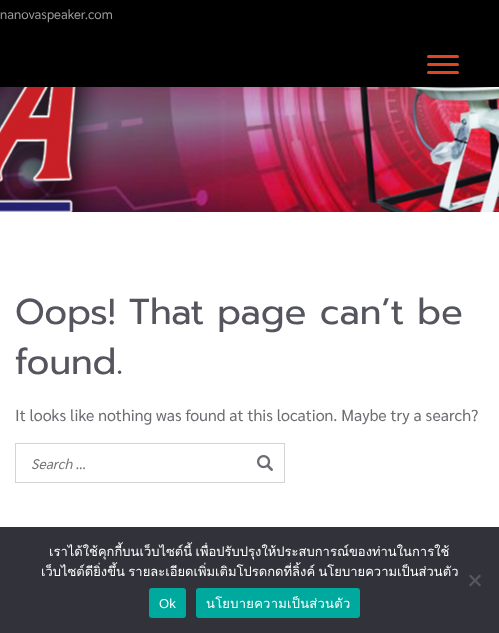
async function draw(canvas) {
	canvas.width = 499;
	canvas.height = 633;
	const c = canvas.getContext('2d');
	c.miterLimit = 4;
	c.fontKerning = 'normal';
	async function loadImage(src) {
		const img = new Image();
		img.src = src;
		await img.decode();
		return img;
	}

	c.fillStyle = '#fff';
	c.fillRect(0, 0, 499, 633);
	c.fillStyle = '#000';
	c.fillRect(0, 0, 499, 87);
	c.font = '13.25px Sarabun';
	c.fillStyle = '#999';
	c.fillText('nanovaspeaker.com', 0, 19);
	c.fillStyle = '#e04622';
	c.beginPath();
	c.roundRect(427, 55, 32, 3, 1.5);
	c.fill();
	c.beginPath();
	c.roundRect(427, 63, 32, 3, 1.5);
	c.fill();
	c.beginPath();
	c.roundRect(427, 71, 32, 3, 1.5);
	c.fill();
	c.drawImage(await loadImage('img1.png'), 0, 87, 499, 125);
	c.font = '36px Prompt';
	c.fillStyle = '#55555f';
	c.fillText('Oops! That page can’t be', 15, 324);
	c.fillText('found.', 15, 374);
	c.font = '16px Sarabun';
	c.fillStyle = '#6c6c72';
	c.fillText('It looks like nothing was found at this location. Maybe try a search?', 15, 421);
	c.strokeStyle = '#d4d4d4';
	c.strokeRect(15.5, 443.5, 269, 39);
	c.font = 'italic 14px Sarabun';
	c.fillStyle = '#757575';
	c.fillText('Search …', 31, 469);
	c.drawImage(await loadImage('img2.png'), 257, 455, 16, 16);
	c.fillStyle = '#32323a';
	c.fillRect(0, 527, 499, 106);
	c.wordSpacing = '-1px';
	c.font = '13px Loma';
	c.fillStyle = '#fff';
	c.fillText('เราได้ใช้คุกกี้บนเว็บไซต์นี้ เพื่อปรับปรุงให้ประสบการณ์ของท่านในการใช้', 49, 556);
	c.fillText('เว็บไซต์ดียิ่งขึ้น รายละเอียดเพิ่มเติมโปรดกดที่ลิ้งค์ นโยบายความเป็นส่วนตัว', 41, 576);
	c.fillStyle = '#59595d';
	c.beginPath();
	c.moveTo(479.5, 574.5);
	c.lineTo(481, 576);
	c.lineTo(470.5, 586.5);
	c.lineTo(469, 585);
	c.closePath();
	c.fill();
	c.beginPath();
	c.moveTo(469, 576);
	c.lineTo(470.5, 574.5);
	c.lineTo(481, 585);
	c.lineTo(479.5, 586.5);
	c.closePath();
	c.fill();
	c.fillStyle = '#00a99d';
	c.beginPath();
	c.roundRect(149, 588, 37, 30, 3);
	c.fill();
	c.letterSpacing = '0.25px';
	c.wordSpacing = '0px';
	c.font = '13px Liberation Sans';
	c.fillStyle = '#fff';
	c.fillText('Ok', 159, 608);
	c.fillStyle = '#00a99d';
	c.beginPath();
	c.roundRect(196, 588, 164, 30, 3);
	c.fill();
	c.font = '13px Loma';
	c.fillStyle = '#fff';
	c.fillText('นโยบายความเป็นส่วนตัว', 206, 608);
}

draw(document.querySelector('canvas'));
